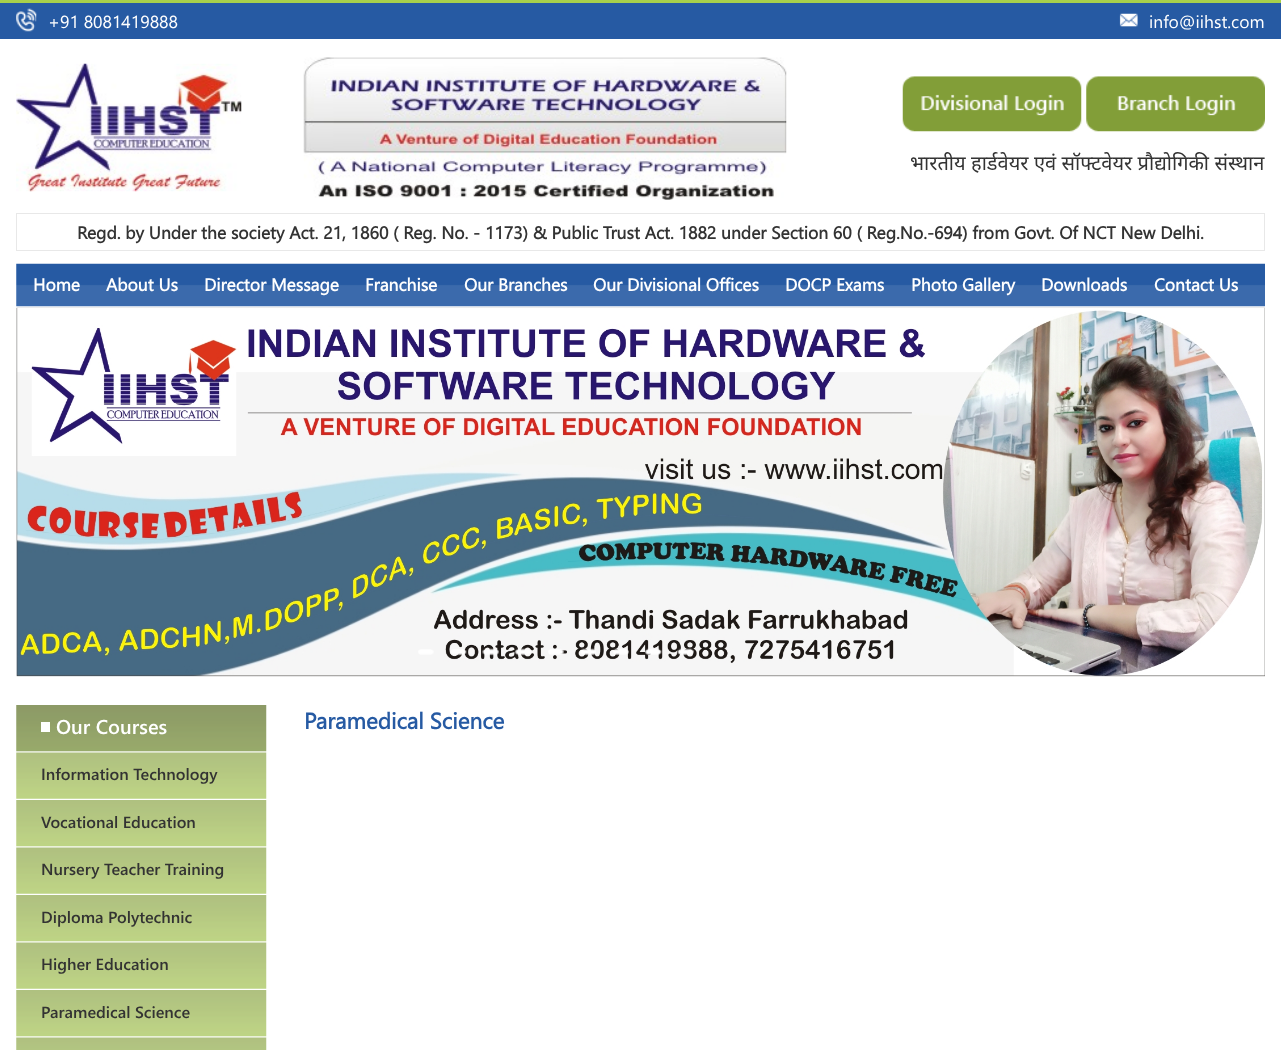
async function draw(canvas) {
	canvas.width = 1281;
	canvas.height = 1050;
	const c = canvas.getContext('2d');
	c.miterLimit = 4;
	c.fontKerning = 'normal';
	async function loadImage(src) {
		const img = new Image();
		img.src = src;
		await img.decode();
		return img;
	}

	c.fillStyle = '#fff';
	c.fillRect(0, 0, 1281, 1050);
	c.fillStyle = '#265aa3';
	c.fillRect(0, 3, 1281, 36);
	c.fillStyle = '#a8d04b';
	c.fillRect(0, 0, 1281, 3);
	c.drawImage(await loadImage('img1.png'), 16, 8, 21, 24);
	c.font = '17.5px Segoe UI';
	c.fillStyle = '#fff';
	c.fillText('+91 8081419888', 48, 28);
	c.drawImage(await loadImage('img2.png'), 1119, 13, 19, 14);
	c.fillText('info@iihst.com', 1149, 28);
	c.drawImage(await loadImage('img3.png'), 16, 63, 226, 129);
	c.drawImage(await loadImage('img4.png'), 303, 57, 484, 143);
	c.drawImage(await loadImage('img5.png'), 902, 76, 180, 56);
	c.drawImage(await loadImage('img6.png'), 1086, 76, 179, 56);
	c.wordSpacing = '0.25px';
	c.font = '20px Noto Sans';
	c.fillStyle = '#333';
	c.fillText('भारतीय हार्डवेयर एवं सॉफ्टवेयर प्रौद्योगिकी संस्थान', 910, 170);
	c.strokeStyle = '#e8e8e8';
	c.strokeRect(16.5, 213.5, 1248, 37);
	c.wordSpacing = '0px';
	c.font = 'bold 17.5px Segoe UI';
	c.fillText('Regd. by Under the society Act. 21, 1860 ( Reg. No. - 1173) & Public Trust Act. 1882 under Section 60 ( Reg.No.-694) from Govt. Of NCT New Delhi.', 77, 239);
	c.drawImage(await loadImage('img7.png'), 16, 263, 1249, 44);
	c.fillStyle = '#fff';
	for (const [text, x, y] of [
		['Home', 33, 291],
		['About Us', 106, 291],
		['Director Message', 204, 291],
		['Franchise', 365, 291],
		['Our Branches', 464, 291],
		['Our Divisional Offices', 593, 291],
		['DOCP Exams', 785, 291],
		['Photo Gallery', 911, 291],
		['Downloads', 1041, 291],
		['Contact Us', 1154, 291],
	]) {
		c.fillText(text, x, y);
	}
	c.drawImage(await loadImage('img8.png'), 16, 307, 1249, 370);
	c.drawImage(await loadImage('img9.png'), 418, 649, 16, 6);
	c.drawImage(await loadImage('img10.png'), 449, 649, 18, 7);
	c.drawImage(await loadImage('img11.png'), 482, 648, 17, 8);
	c.drawImage(await loadImage('img12.png'), 514, 648, 18, 8);
	c.drawImage(await loadImage('img13.png'), 548, 648, 16, 8);
	c.drawImage(await loadImage('img14.png'), 580, 648, 16, 8);
	c.drawImage(await loadImage('img15.png'), 613, 648, 16, 8);
	c.drawImage(await loadImage('img16.png'), 644, 648, 18, 8);
	c.drawImage(await loadImage('img17.png'), 677, 648, 17, 8);
	c.drawImage(await loadImage('img18.png'), 16, 705, 251, 47);
	c.fillRect(41, 722, 9, 10);
	c.font = '600 20px Segoe UI';
	c.fillText('Our Courses', 56, 734);
	c.drawImage(await loadImage('img19.png'), 16, 752, 251, 47);
	c.font = '600 16.25px Segoe UI';
	c.fillStyle = '#333';
	c.fillText('Information Technology', 41, 780);
	c.drawImage(await loadImage('img20.png'), 16, 800, 251, 47);
	c.fillText('Vocational Education', 41, 828);
	c.drawImage(await loadImage('img19.png'), 16, 847, 251, 47);
	c.fillText('Nursery Teacher Training', 41, 875);
	c.drawImage(await loadImage('img20.png'), 16, 895, 251, 47);
	c.fillText('Diploma Polytechnic', 41, 923);
	c.drawImage(await loadImage('img19.png'), 16, 942, 251, 47);
	c.fillText('Higher Education', 41, 970);
	c.drawImage(await loadImage('img20.png'), 16, 990, 251, 47);
	c.fillText('Paramedical Science', 41, 1018);
	c.drawImage(await loadImage('img21.png'), 16, 1037, 251, 13);
	c.font = 'bold 22.5px Segoe UI';
	c.fillStyle = '#265aa3';
	c.fillText('Paramedical Science', 304, 729);
}

draw(document.querySelector('canvas'));
